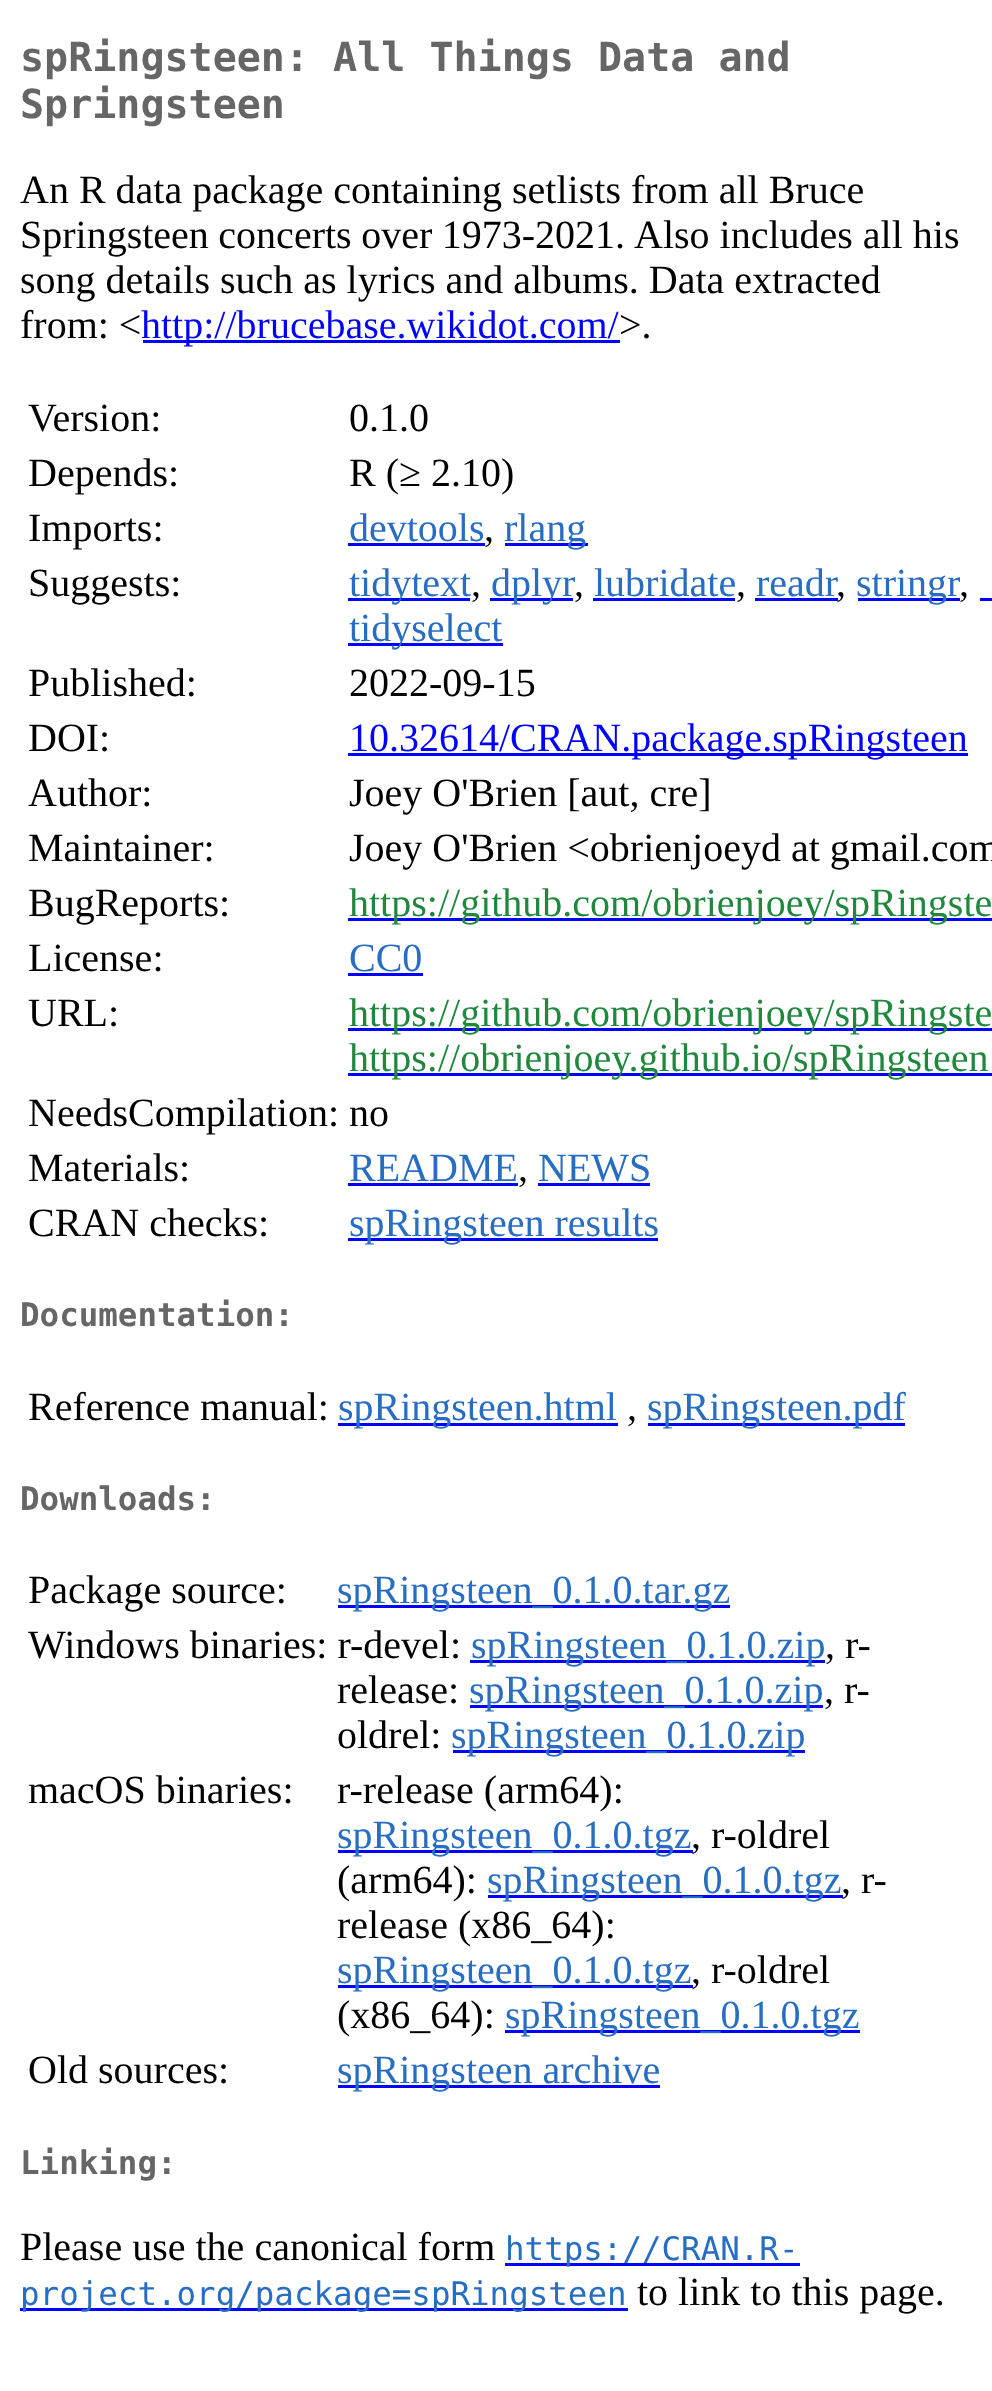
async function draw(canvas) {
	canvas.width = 992;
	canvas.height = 2391;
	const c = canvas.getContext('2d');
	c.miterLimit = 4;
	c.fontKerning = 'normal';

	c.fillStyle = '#fff';
	c.fillRect(0, 0, 992, 2391);
	c.font = 'bold 40px DejaVu Sans Mono';
	c.fillStyle = '#666';
	c.fillText('spRingsteen: All Things Data and', 20, 71);
	c.fillText('Springsteen', 20, 118);
	c.font = '40px Liberation Serif';
	c.fillStyle = '#000';
	c.fillText('An R data package containing setlists from all Bruce', 20, 203);
	c.wordSpacing = '-0.5px';
	c.fillText('Springsteen concerts over 1973-2021.', 20, 248);
	c.wordSpacing = '0px';
	for (const [text, x, y] of [
		['Also includes all his', 634, 248],
		['song details such as lyrics and albums. Data extracted', 20, 293],
		['from: <', 20, 338],
	]) {
		c.fillText(text, x, y);
	}
	c.fillStyle = '#00f';
	c.fillRect(143, 340, 477, 3);
	c.fillText('http://brucebase.wikidot.com/', 141, 338);
	c.fillStyle = '#000';
	for (const [text, x, y] of [
		['>.', 619, 338],
		['Version:', 28, 431],
		['0.1.0', 349, 431],
		['Depends:', 28, 486],
		['R (≥ 2.10)', 349, 486],
		['Imports:', 28, 541],
	]) {
		c.fillText(text, x, y);
	}
	c.fillStyle = '#276dc3';
	c.fillText('devtools', 349, 541);
	c.fillStyle = '#00f';
	c.fillRect(348, 543, 137, 3);
	c.fillStyle = '#000';
	c.fillText(',', 484, 541);
	c.fillStyle = '#00f';
	c.fillRect(505, 543, 83, 3);
	c.fillStyle = '#276dc3';
	c.fillText('rlang', 504, 541);
	c.fillStyle = '#000';
	c.fillText('Suggests:', 28, 596);
	c.fillStyle = '#00f';
	c.fillRect(348, 598, 122, 3);
	c.fillStyle = '#276dc3';
	c.fillText('tidytext', 349, 596);
	c.fillStyle = '#000';
	c.fillText(',', 471, 596);
	c.fillStyle = '#00f';
	c.fillRect(490, 598, 83, 3);
	c.fillStyle = '#276dc3';
	c.fillText('dplyr', 491, 596);
	c.fillStyle = '#000';
	c.fillText(',', 574, 596);
	c.fillStyle = '#276dc3';
	c.fillText('lubridate', 594, 596);
	c.fillStyle = '#00f';
	c.fillRect(593, 598, 142, 3);
	c.fillStyle = '#000';
	c.fillText(',', 736, 596);
	c.fillStyle = '#276dc3';
	c.fillText('readr', 756, 596);
	c.fillStyle = '#00f';
	c.fillRect(755, 598, 83, 3);
	c.fillStyle = '#000';
	c.fillText(',', 836, 596);
	c.fillStyle = '#00f';
	c.fillRect(858, 598, 102, 3);
	c.fillStyle = '#276dc3';
	c.fillText('stringr', 856, 596);
	c.fillStyle = '#000';
	c.fillText(',', 959, 596);
	c.fillStyle = '#00f';
	c.fillRect(980, 598, 12, 3);
	c.fillRect(348, 643, 155, 3);
	c.fillStyle = '#276dc3';
	c.fillText('tidyselect', 349, 641);
	c.fillStyle = '#000';
	for (const [text, x, y] of [
		['Published:', 28, 696],
		['2022-09-15', 349, 696],
		['DOI:', 28, 751],
	]) {
		c.fillText(text, x, y);
	}
	c.fillStyle = '#00f';
	c.fillRect(348, 753, 620, 3);
	c.fillText('10.32614/CRAN.package.spRingsteen', 349, 751);
	c.fillStyle = '#000';
	for (const [text, x, y] of [
		['Author:', 28, 806],
		['Joey O\'Brien [aut, cre]', 349, 806],
		['Maintainer:', 28, 861],
		['Joey O\'Brien <obrienjoeyd at gmail.com', 349, 861],
		['BugReports:', 28, 916],
	]) {
		c.fillText(text, x, y);
	}
	c.fillStyle = '#00f';
	c.fillRect(348, 918, 644, 3);
	c.fillStyle = '#1f883d';
	c.fillText('https://github.com/obrienjoey/spRingste', 349, 916);
	c.fillStyle = '#000';
	c.fillText('License:', 28, 971);
	c.fillStyle = '#276dc3';
	c.fillText('CC0', 349, 971);
	c.fillStyle = '#00f';
	c.fillRect(348, 973, 75, 3);
	c.fillStyle = '#000';
	c.fillText('URL:', 28, 1026);
	c.fillStyle = '#00f';
	c.fillRect(348, 1028, 644, 3);
	c.fillStyle = '#1f883d';
	c.fillText('https://github.com/obrienjoey/spRingste', 349, 1026);
	c.fillStyle = '#00f';
	c.fillRect(348, 1073, 644, 3);
	c.fillStyle = '#1f883d';
	c.fillText('https://obrienjoey.github.io/spRingsteen', 349, 1071);
	c.fillStyle = '#000';
	c.fillText('NeedsCompilation: no', 28, 1126);
	c.fillText('Materials:', 28, 1181);
	c.fillStyle = '#276dc3';
	c.fillText('README', 349, 1181);
	c.fillStyle = '#00f';
	c.fillRect(348, 1183, 170, 3);
	c.fillStyle = '#000';
	c.fillText(',', 518, 1181);
	c.fillStyle = '#276dc3';
	c.fillText('NEWS', 538, 1181);
	c.fillStyle = '#00f';
	c.fillRect(538, 1183, 112, 3);
	c.fillStyle = '#000';
	c.fillText('CRAN checks:', 28, 1236);
	c.fillStyle = '#00f';
	c.fillRect(348, 1238, 310, 3);
	c.fillStyle = '#276dc3';
	c.fillText('spRingsteen results', 349, 1236);
	c.font = 'bold 32.5px DejaVu Sans Mono';
	c.fillStyle = '#666';
	c.fillText('Documentation:', 20, 1326);
	c.font = '40px Liberation Serif';
	c.fillStyle = '#000';
	c.fillText('Reference manual:', 28, 1420);
	c.fillStyle = '#00f';
	c.fillRect(338, 1423, 280, 3);
	c.fillStyle = '#276dc3';
	c.fillText('spRingsteen.html', 338, 1420);
	c.fillStyle = '#000';
	c.fillText(',', 627, 1420);
	c.fillStyle = '#00f';
	c.fillRect(648, 1423, 257, 3);
	c.fillStyle = '#276dc3';
	c.fillText('spRingsteen.pdf', 647, 1420);
	c.font = 'bold 32.5px DejaVu Sans Mono';
	c.fillStyle = '#666';
	c.fillText('Downloads:', 20, 1510);
	c.font = '40px Liberation Serif';
	c.fillStyle = '#000';
	c.fillText('Package source:', 28, 1603);
	c.fillStyle = '#00f';
	c.fillRect(338, 1605, 392, 3);
	c.fillStyle = '#276dc3';
	c.fillText('spRingsteen_0.1.0.tar.gz', 337, 1603);
	c.fillStyle = '#000';
	c.fillText('Windows binaries: r-devel:', 28, 1658);
	c.fillStyle = '#00f';
	c.fillRect(470, 1660, 355, 3);
	c.fillStyle = '#276dc3';
	c.fillText('spRingsteen_0.1.0.zip', 471, 1658);
	c.fillStyle = '#000';
	c.fillText(', r-', 825, 1658);
	c.fillText('release:', 337, 1703);
	c.fillStyle = '#00f';
	c.fillRect(470, 1705, 353, 3);
	c.fillStyle = '#276dc3';
	c.fillText('spRingsteen_0.1.0.zip', 469, 1703);
	c.fillStyle = '#000';
	c.fillText(', r-', 824, 1703);
	c.fillText('oldrel:', 337, 1748);
	c.fillStyle = '#00f';
	c.fillRect(453, 1750, 352, 3);
	c.fillStyle = '#276dc3';
	c.fillText('spRingsteen_0.1.0.zip', 451, 1748);
	c.fillStyle = '#000';
	c.fillText('macOS binaries:', 28, 1803);
	c.fillText('r-release (arm64):', 337, 1803);
	c.fillStyle = '#00f';
	c.fillRect(338, 1850, 355, 3);
	c.fillStyle = '#276dc3';
	c.fillText('spRingsteen_0.1.0.tgz', 337, 1848);
	c.fillStyle = '#000';
	c.fillText(', r-oldrel', 691, 1848);
	c.fillText('(arm64):', 337, 1893);
	c.fillStyle = '#00f';
	c.fillRect(488, 1895, 355, 3);
	c.fillStyle = '#276dc3';
	c.fillText('spRingsteen_0.1.0.tgz', 487, 1893);
	c.fillStyle = '#000';
	c.fillText(', r-', 841, 1893);
	c.fillText('release (x86_64):', 337, 1938);
	c.fillStyle = '#00f';
	c.fillRect(338, 1985, 355, 3);
	c.fillStyle = '#276dc3';
	c.fillText('spRingsteen_0.1.0.tgz', 337, 1983);
	c.fillStyle = '#000';
	c.fillText(', r-oldrel', 691, 1983);
	c.fillText('(x86_64):', 337, 2028);
	c.fillStyle = '#00f';
	c.fillRect(505, 2030, 355, 3);
	c.fillStyle = '#276dc3';
	c.fillText('spRingsteen_0.1.0.tgz', 505, 2028);
	c.fillStyle = '#000';
	c.fillText('Old sources:', 28, 2083);
	c.fillStyle = '#00f';
	c.fillRect(338, 2085, 322, 3);
	c.fillStyle = '#276dc3';
	c.fillText('spRingsteen archive', 337, 2083);
	c.font = 'bold 32.5px DejaVu Sans Mono';
	c.fillStyle = '#666';
	c.fillText('Linking:', 20, 2174);
	c.font = '40px Liberation Serif';
	c.fillStyle = '#000';
	c.fillText('Please use the canonical form', 20, 2260);
	c.fillStyle = '#00f';
	c.fillRect(505, 2263, 295, 3);
	c.font = '32.5px DejaVu Sans Mono';
	c.fillStyle = '#276dc3';
	c.fillText('https://CRAN.R-', 505, 2260);
	c.fillStyle = '#00f';
	c.fillRect(20, 2308, 608, 3);
	c.fillStyle = '#276dc3';
	c.fillText('project.org/package=spRingsteen', 20, 2305);
	c.font = '40px Liberation Serif';
	c.fillStyle = '#000';
	c.fillText('to link to this page.', 637, 2305);
}

draw(document.querySelector('canvas'));
